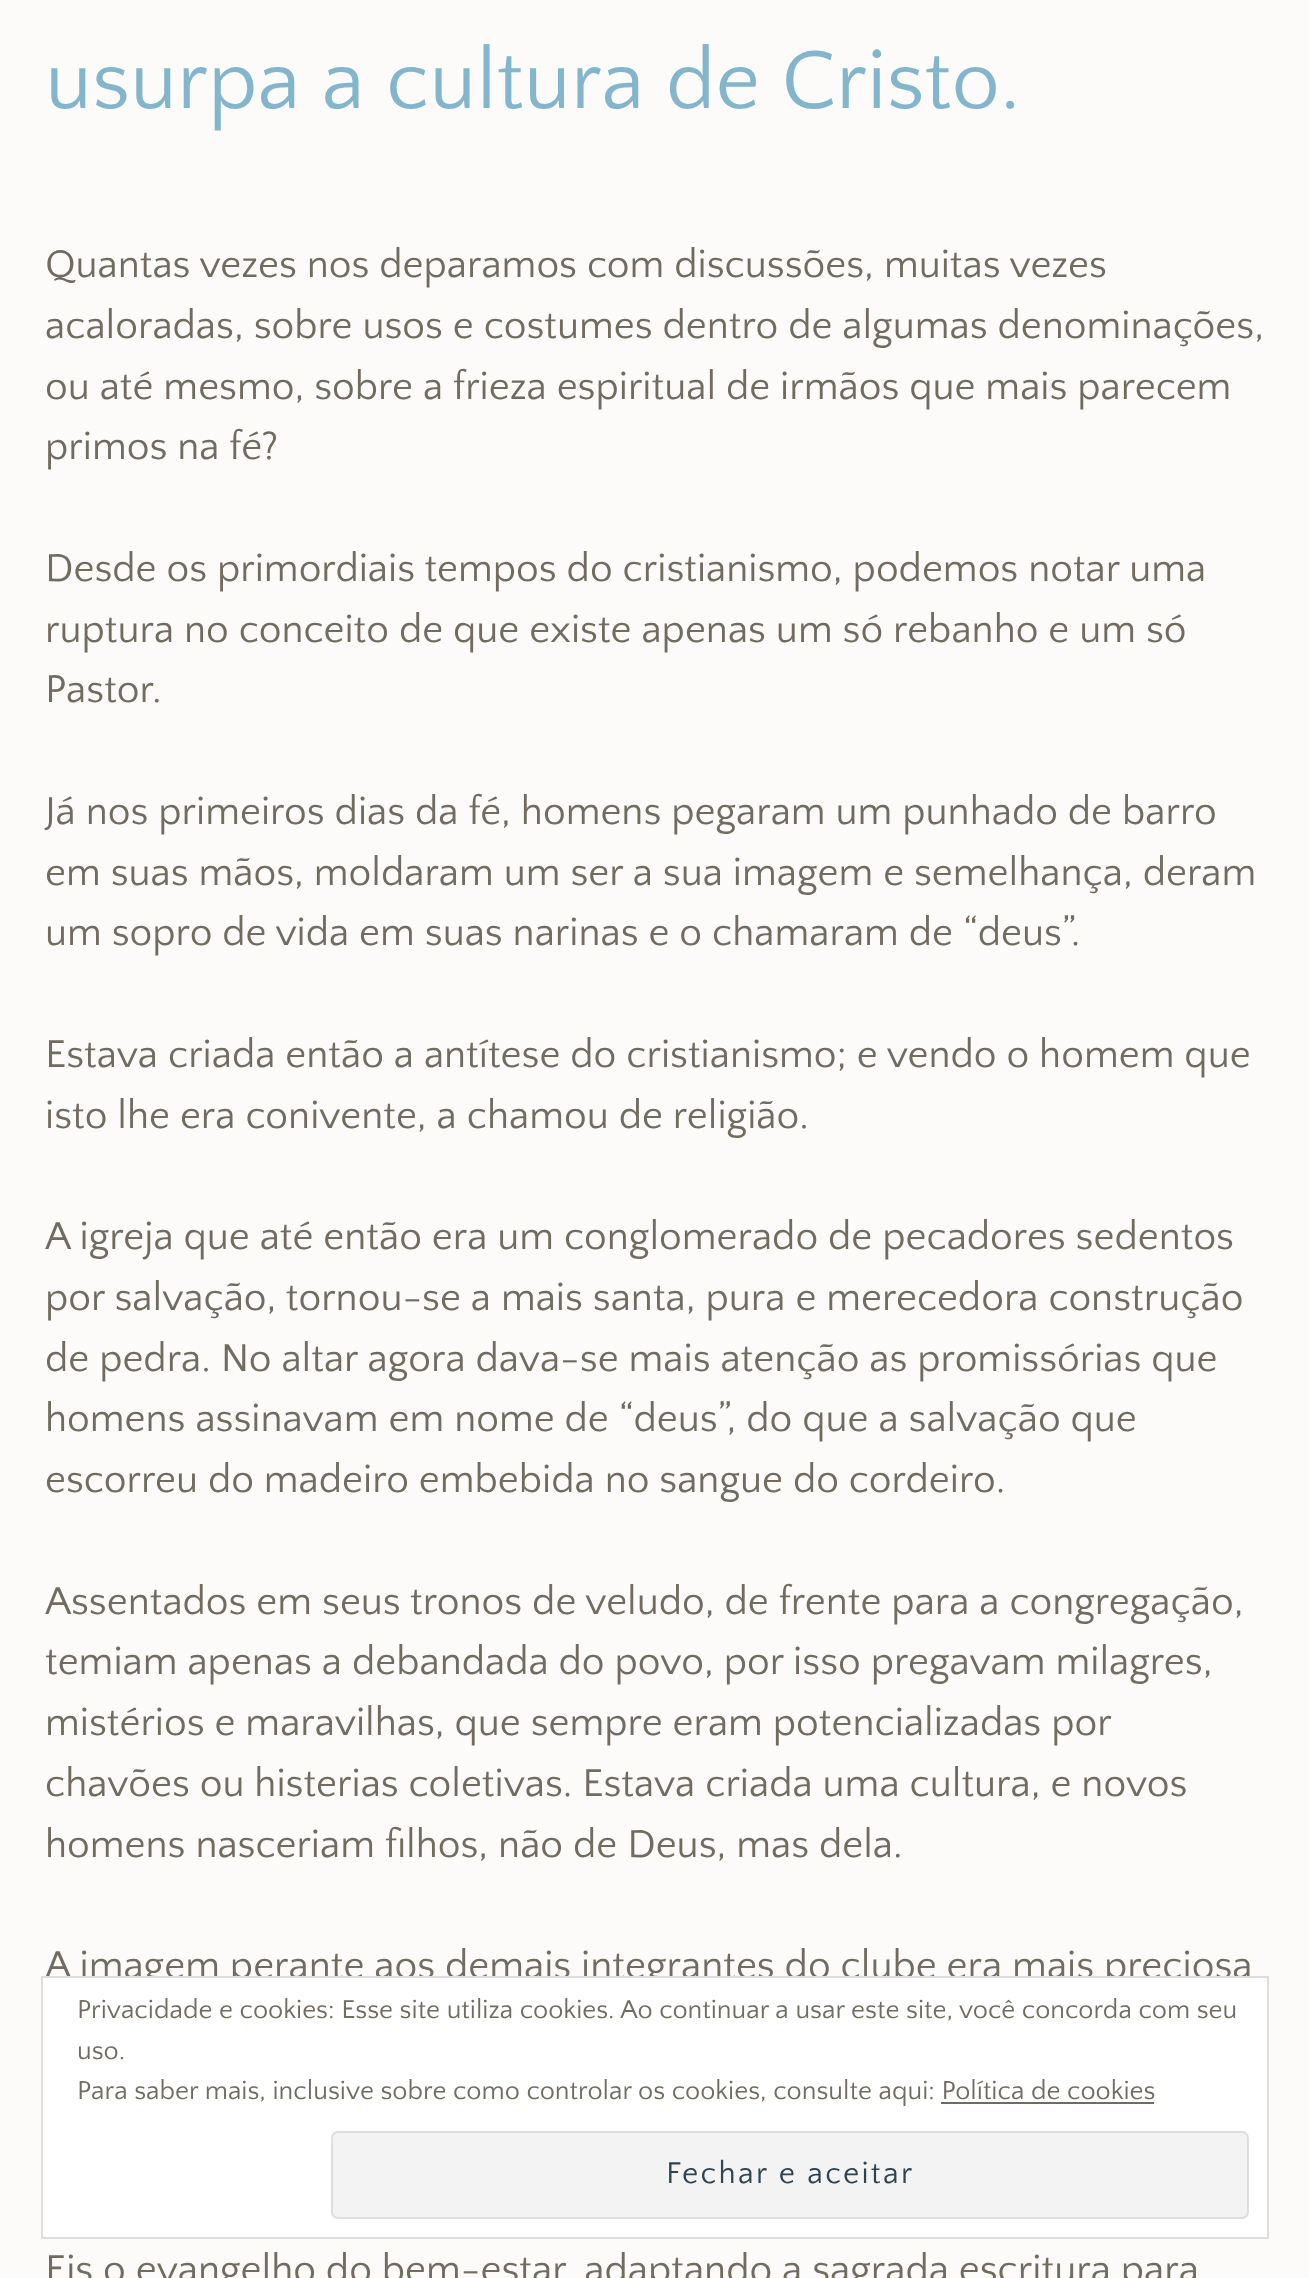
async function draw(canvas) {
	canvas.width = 1309;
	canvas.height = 2278;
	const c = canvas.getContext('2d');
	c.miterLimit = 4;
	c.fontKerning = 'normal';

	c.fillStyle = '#fcfbfa';
	c.fillRect(0, 0, 1309, 2278);
	c.font = '86.4px Quattrocento Sans';
	c.fillStyle = '#83b6cc';
	c.fillText('usurpa a cultura de Cristo.', 45, 108);
	c.font = '40.5px Quattrocento Sans';
	c.fillStyle = '#726b60';
	for (const [text, x, y] of [
		['Quantas vezes nos deparamos com discussões, muitas vezes', 45, 277],
		['acaloradas, sobre usos e costumes dentro de algumas denominações,', 45, 338],
		['ou até mesmo, sobre a frieza espiritual de irmãos que mais parecem', 45, 399],
		['primos na fé?', 45, 459],
		['Desde os primordiais tempos do cristianismo, podemos notar uma', 45, 581],
		['ruptura no conceito de que existe apenas um só rebanho e um só', 45, 642],
		['Pastor.', 45, 702],
		['Já nos primeiros dias da fé, homens pegaram um punhado de barro', 45, 824],
		['em suas mãos, moldaram um ser a sua imagem e semelhança, deram', 45, 885],
		['um sopro de vida em suas narinas e o chamaram de “deus”.', 45, 945],
		['Estava criada então a antítese do cristianismo; e vendo o homem que', 45, 1067],
		['isto lhe era conivente, a chamou de religião.', 45, 1128],
		['A igreja que até então era um conglomerado de pecadores sedentos', 45, 1249],
		['por salvação, tornou-se a mais santa, pura e merecedora construção', 45, 1310],
		['de pedra. No altar agora dava-se mais atenção as promissórias que', 45, 1371],
		['homens assinavam em nome de “deus”, do que a salvação que', 45, 1431],
		['escorreu do madeiro embebida no sangue do cordeiro.', 45, 1492],
		['Assentados em seus tronos de veludo, de frente para a congregação,', 45, 1614],
		['temiam apenas a debandada do povo, por isso pregavam milagres,', 45, 1674],
		['mistérios e maravilhas, que sempre eram potencializadas por', 45, 1735],
		['chavões ou histerias coletivas. Estava criada uma cultura, e novos', 45, 1796],
		['homens nasceriam filhos, não de Deus, mas dela.', 45, 1857],
		['A imagem perante aos demais integrantes do clube era mais preciosa', 45, 1978],
		['Eis o evangelho do bem-estar, adaptando a sagrada escritura para', 45, 2282],
	]) {
		c.fillText(text, x, y);
	}
	c.fillStyle = '#fff';
	c.beginPath();
	c.rect(42, 1977, 1226, 261);
	c.fill();
	c.strokeStyle = '#dedede';
	c.lineWidth = 2;
	c.stroke();
	c.font = '27px Quattrocento Sans';
	c.fillStyle = '#726b60';
	for (const [text, x, y] of [
		['Privacidade e cookies: Esse site utiliza cookies. Ao continuar a usar este site, você concorda com seu', 77, 2018],
		['uso.', 77, 2059],
		['Para saber mais, inclusive sobre como controlar os cookies, consulte aqui: Política de cookies', 77, 2099],
	]) {
		c.fillText(text, x, y);
	}
	c.fillRect(941, 2102, 213, 2);
	c.fillStyle = '#f3f3f3';
	c.beginPath();
	c.roundRect(332, 2132, 916, 86, 6);
	c.fill();
	c.stroke();
	c.letterSpacing = '2.25px';
	c.font = '31.5px Quattrocento Sans';
	c.fillStyle = '#2e4453';
	c.fillText('Fechar e aceitar', 666, 2183);
}

draw(document.querySelector('canvas'));
